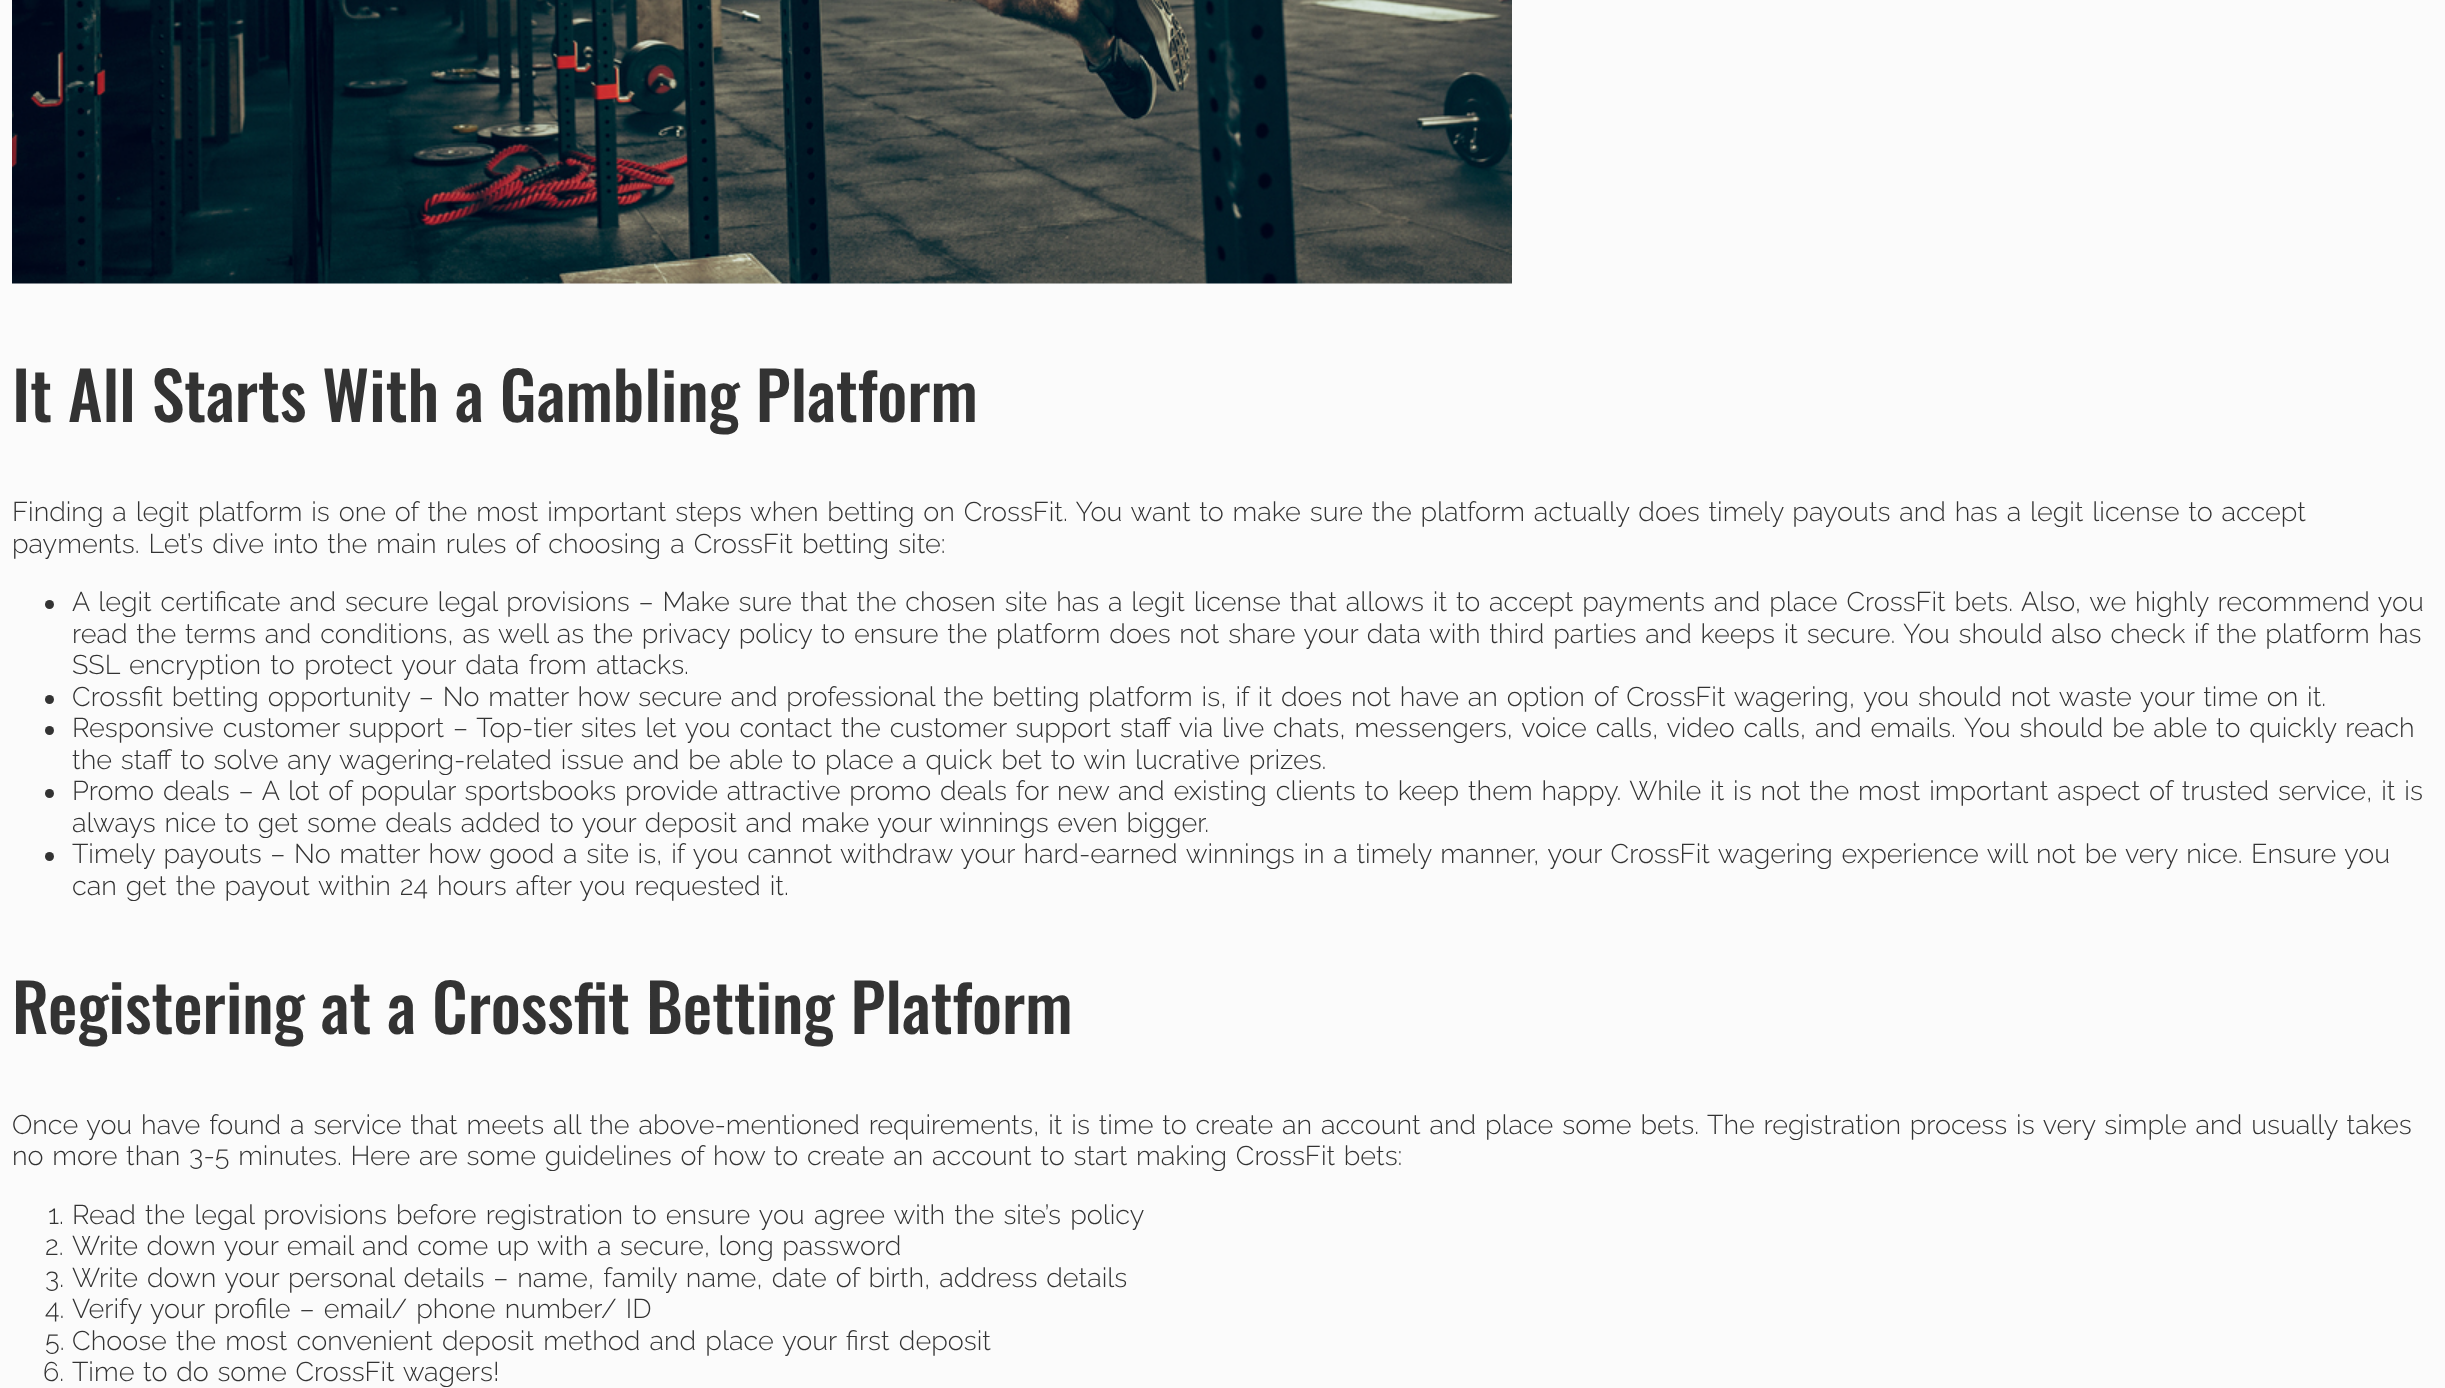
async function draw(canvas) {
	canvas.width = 2445;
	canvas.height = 1388;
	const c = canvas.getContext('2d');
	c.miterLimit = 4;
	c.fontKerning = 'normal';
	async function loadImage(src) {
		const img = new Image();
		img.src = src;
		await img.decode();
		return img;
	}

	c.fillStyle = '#fbfbfb';
	c.fillRect(0, 0, 2445, 1388);
	c.drawImage(await loadImage('img1.png'), 12, 0, 1500, 284);
	c.font = '500 66px Oswald';
	c.fillStyle = '#333';
	c.fillText('It All Starts With a Gambling Platform', 12, 422);
	c.wordSpacing = '1.9px';
	c.font = '300 27px Raleway';
	c.fillText('Finding a legit platform is one of the most important steps when betting on CrossFit. You want to make sure the platform actually does timely payouts and has a legit license to accept', 12, 521);
	c.wordSpacing = '2.1px';
	c.fillText('payments. Let’s dive into the main rules of choosing a CrossFit betting site:', 12, 553);
	c.beginPath();
	c.arc(49.5, 604.5, 4.5, 0, 2 * Math.PI);
	c.fill();
	c.wordSpacing = '1.9px';
	c.fillText('A legit certificate and secure legal provisions – Make sure that the chosen site has a legit license that allows it to accept payments and place CrossFit bets. Also, we highly recommend you', 72, 611);
	c.wordSpacing = '1.85px';
	c.fillText('read the terms and conditions, as well as the privacy policy to ensure the platform does not share your data with third parties and keeps it secure. You should also check if the platform has', 72, 643);
	c.wordSpacing = '2.5px';
	c.fillText('SSL encryption to protect your data from attacks.', 72, 674);
	c.beginPath();
	c.arc(49.5, 699.5, 4.5, 0, 2 * Math.PI);
	c.fill();
	c.wordSpacing = '1.9px';
	c.fillText('Crossfit betting opportunity – No matter how secure and professional the betting platform is, if it does not have an option of CrossFit wagering, you should not waste your time on it.', 72, 706);
	c.beginPath();
	c.arc(49.5, 730.5, 4.5, 0, 2 * Math.PI);
	c.fill();
	c.wordSpacing = '1.95px';
	c.fillText('Responsive customer support – Top-tier sites let you contact the customer support staff via live chats, messengers, voice calls, video calls, and emails. You should be able to quickly reach', 72, 737);
	c.wordSpacing = '1.9px';
	c.fillText('the staff to solve any wagering-related issue and be able to place a quick bet to win lucrative prizes.', 72, 769);
	c.beginPath();
	c.arc(49.5, 793.5, 4.5, 0, 2 * Math.PI);
	c.fill();
	c.fillText('Promo deals – A lot of popular sportsbooks provide attractive promo deals for new and existing clients to keep them happy. While it is not the most important aspect of trusted service, it is', 72, 800);
	c.wordSpacing = '1.75px';
	c.fillText('always nice to get some deals added to your deposit and make your winnings even bigger.', 72, 832);
	c.beginPath();
	c.arc(49.5, 856.5, 4.5, 0, 2 * Math.PI);
	c.fill();
	c.fillText('Timely payouts – No matter how good a site is, if you cannot withdraw your hard-earned winnings in a timely manner, your CrossFit wagering experience will not be very nice. Ensure you', 72, 863);
	c.wordSpacing = '2.1px';
	c.fillText('can get the payout within 24 hours after you requested it.', 72, 895);
	c.wordSpacing = '0px';
	c.font = '500 66px Oswald';
	c.fillText('Registering at a Crossfit Betting Platform', 12, 1034);
	c.wordSpacing = '1.95px';
	c.font = '300 27px Raleway';
	c.fillText('Once you have found a service that meets all the above-mentioned requirements, it is time to create an account and place some bets. The registration process is very simple and usually takes', 12, 1134);
	c.wordSpacing = '1.8px';
	c.fillText('no more than 3-5 minutes. Here are some guidelines of how to create an account to start making CrossFit bets:', 12, 1165);
	c.wordSpacing = '0px';
	c.fillText('1.', 48, 1224);
	c.wordSpacing = '2.25px';
	c.fillText('Read the legal provisions before registration to ensure you agree with the site’s policy', 72, 1224);
	c.wordSpacing = '0px';
	c.fillText('2.', 45, 1255);
	c.wordSpacing = '1.6px';
	c.fillText('Write down your email and come up with a secure, long password', 72, 1255);
	c.wordSpacing = '0px';
	c.fillText('3.', 45, 1287);
	c.wordSpacing = '2px';
	c.fillText('Write down your personal details – name, family name, date of birth, address details', 72, 1287);
	c.wordSpacing = '0px';
	c.fillText('4.', 45, 1318);
	c.wordSpacing = '2.25px';
	c.fillText('Verify your profile – email/ phone number/ ID', 72, 1318);
	c.wordSpacing = '0px';
	c.fillText('5.', 45, 1350);
	c.wordSpacing = '2.25px';
	c.fillText('Choose the most convenient deposit method and place your first deposit', 72, 1350);
	c.wordSpacing = '0px';
	c.fillText('6.', 43, 1381);
	c.wordSpacing = '1.75px';
	c.fillText('Time to do some CrossFit wagers!', 72, 1381);
}

draw(document.querySelector('canvas'));
